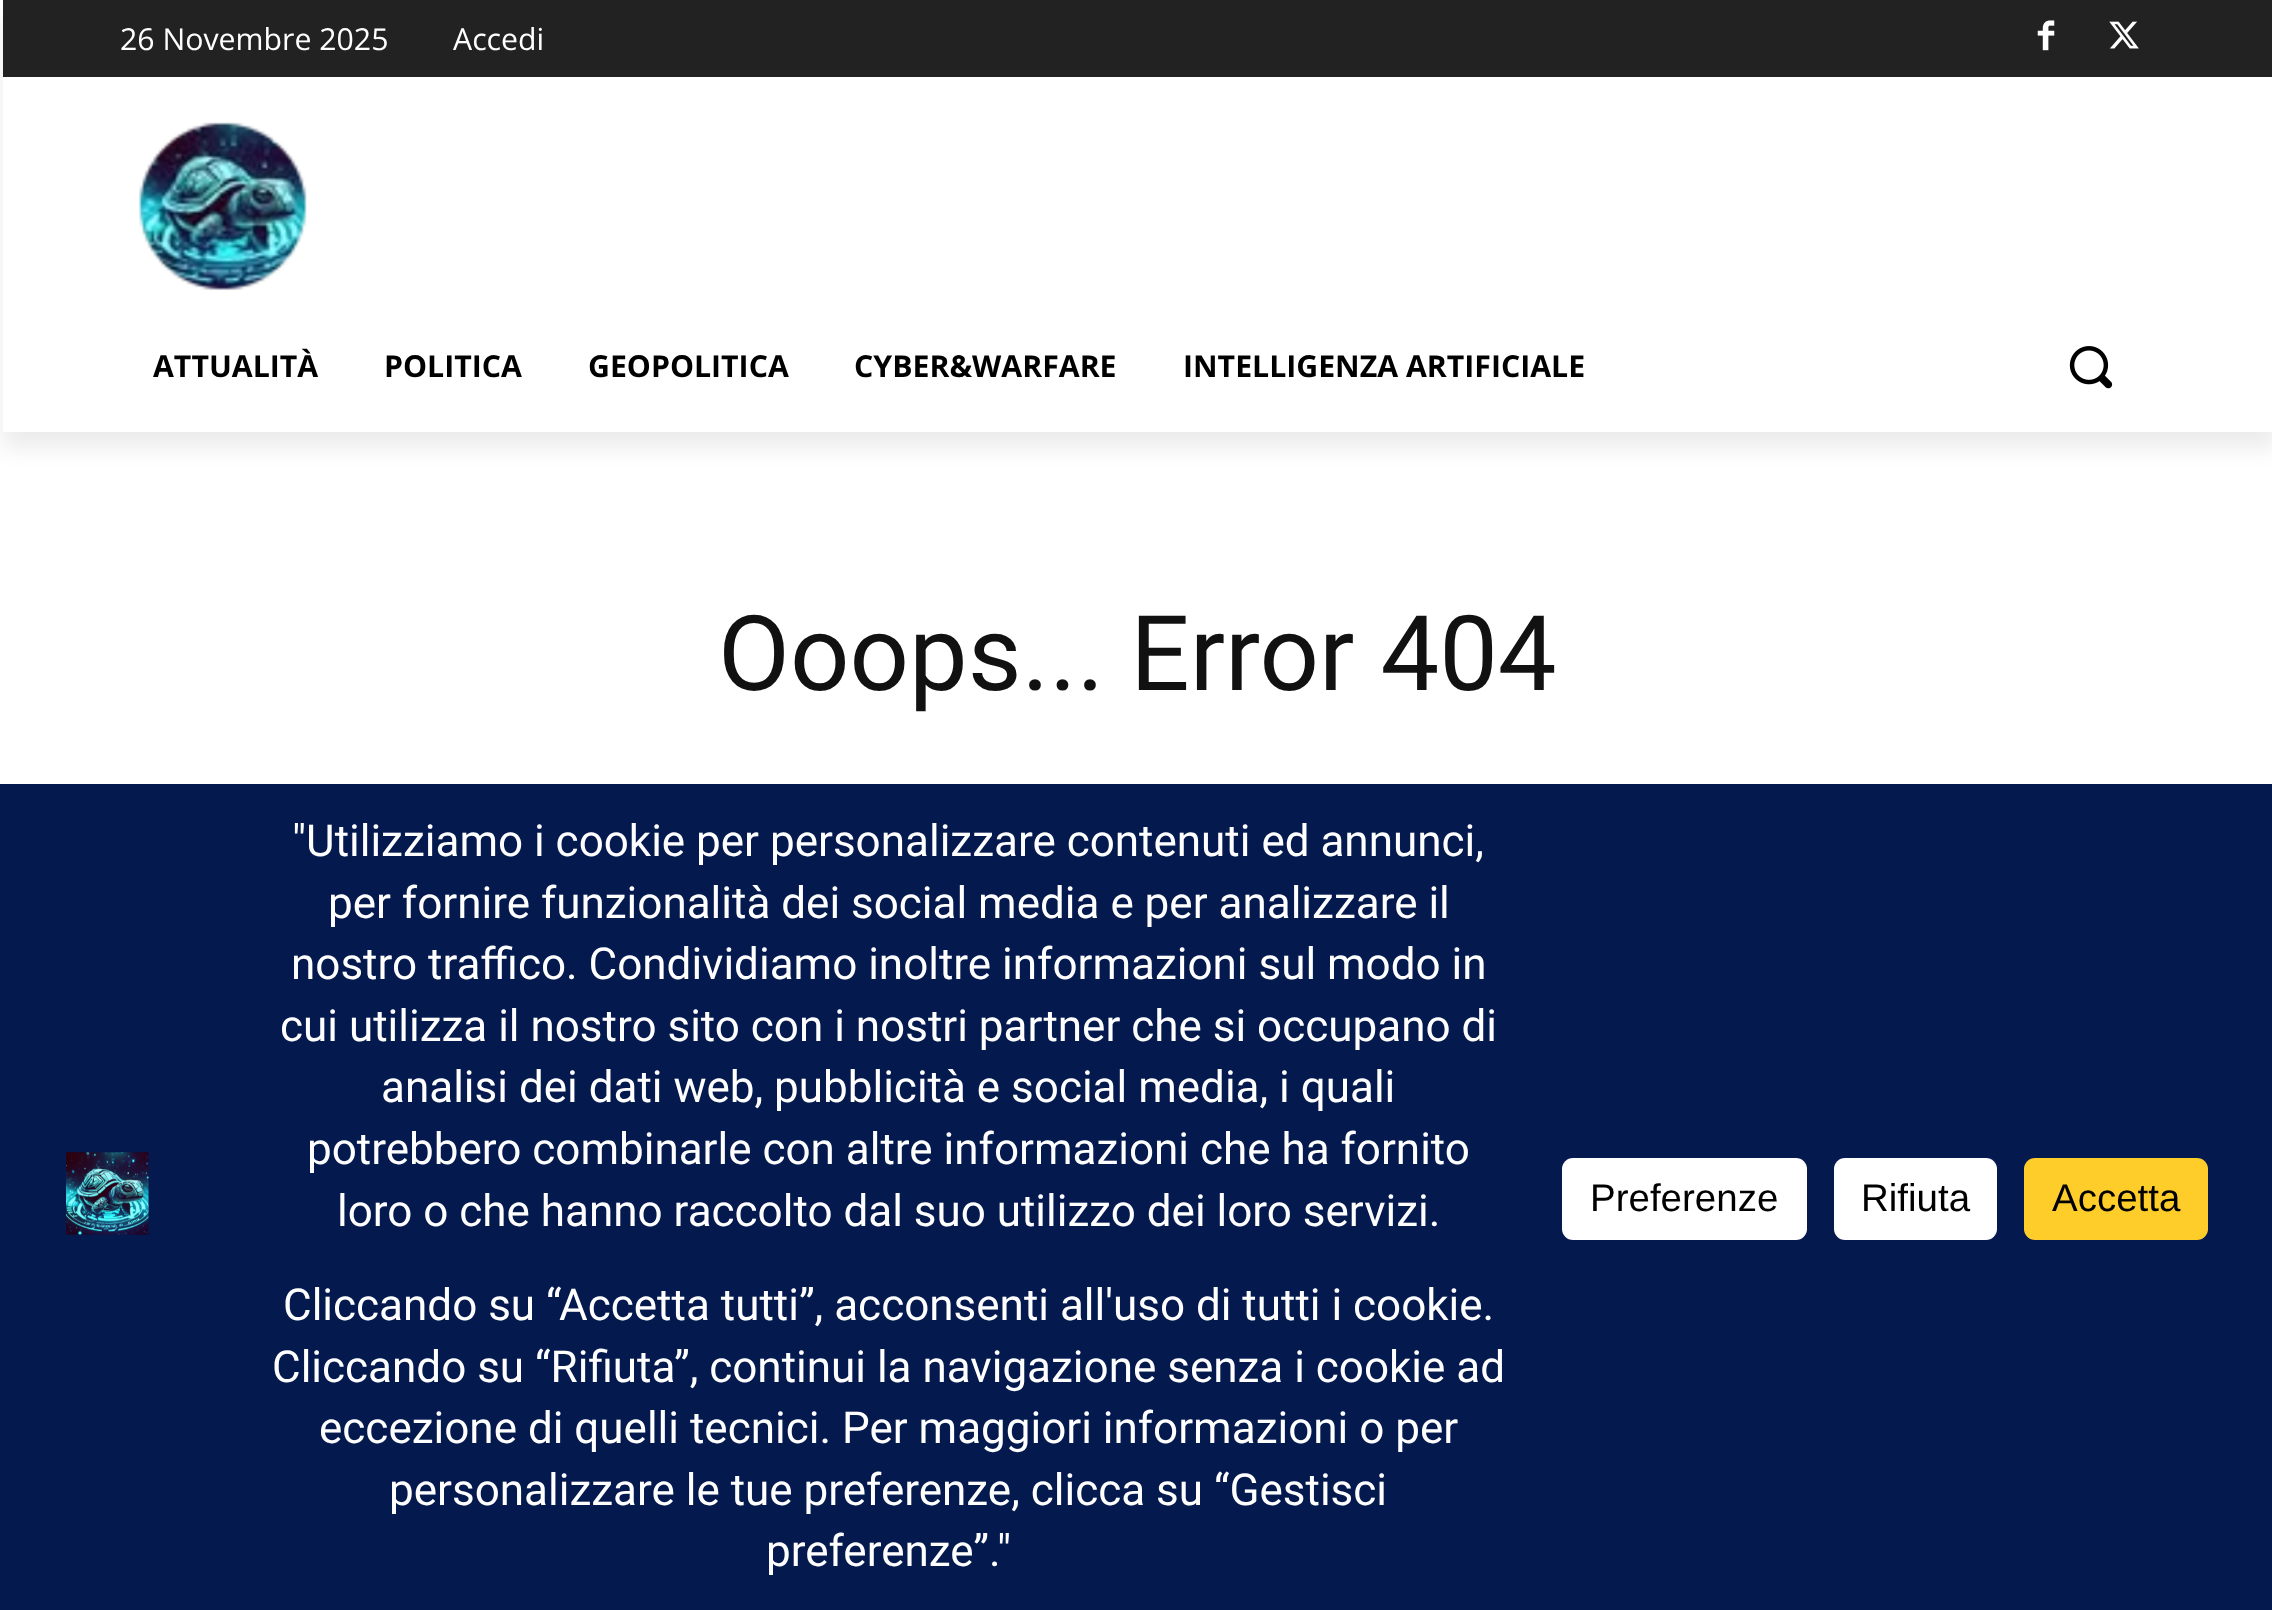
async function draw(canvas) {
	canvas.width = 2272;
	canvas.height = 1610;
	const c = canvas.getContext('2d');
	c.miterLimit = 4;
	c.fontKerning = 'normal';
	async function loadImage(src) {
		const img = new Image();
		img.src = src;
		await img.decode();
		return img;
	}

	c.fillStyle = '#fff';
	c.fillRect(0, 0, 2272, 1610);
	c.fillStyle = '#222';
	c.fillRect(3, 0, 2269, 77);
	c.drawImage(await loadImage('img1.png'), 2037, 20, 18, 31);
	c.drawImage(await loadImage('img2.png'), 2109, 21, 30, 28);
	c.drawImage(await loadImage('img3.png'), 139, 122, 168, 168);
	c.save();
	c.beginPath();
	c.moveTo(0, 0);
	c.lineTo(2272, 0);
	c.lineTo(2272, 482);
	c.lineTo(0, 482);
	c.closePath();
	c.moveTo(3, 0);
	c.lineTo(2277, 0);
	c.lineTo(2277, 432);
	c.lineTo(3, 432);
	c.closePath();
	c.clip('evenodd');
	c.fillStyle = '#00000014';
	c.filter = 'blur(11px)';
	c.beginPath();
	c.rect(3, 17, 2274, 431);
	c.fill();
	c.filter = 'none';
	c.restore();
	c.font = '30.25px Open Sans';
	c.fillStyle = '#fff';
	c.fillText('26 Novembre 2025', 120, 50);
	c.fillText('Accedi', 453, 50);
	c.font = 'bold 30.25px Open Sans';
	c.fillStyle = '#000';
	for (const [text, x, y] of [
		['ATTUALITÀ', 153, 377],
		['POLITICA', 384, 377],
		['GEOPOLITICA', 588, 377],
		['CYBER&WARFARE', 854, 377],
		['INTELLIGENZA ARTIFICIALE', 1183, 377],
	]) {
		c.fillText(text, x, y);
	}
	c.drawImage(await loadImage('img4.png'), 2069, 346, 44, 43);
	c.font = '104.5px Roboto';
	c.fillStyle = '#111';
	c.fillText('Ooops... Error 404', 718, 690);
	c.fillStyle = '#04194e';
	c.fillRect(0, 784, 2272, 826);
	c.drawImage(await loadImage('img5.png'), 66, 1152, 83, 83);
	c.font = '44px Roboto';
	c.fillStyle = '#fff';
	for (const [text, x, y] of [
		['"Utilizziamo i cookie per personalizzare contenuti ed annunci,', 292, 856],
		['per fornire funzionalità dei social media e per analizzare il', 328, 918],
		['nostro traffico. Condividiamo inoltre informazioni sul modo in', 291, 979],
		['cui utilizza il nostro sito con i nostri partner che si occupano di', 280, 1041],
		['analisi dei dati web, pubblicità e social media, i quali', 381, 1102],
		['potrebbero combinarle con altre informazioni che ha fornito', 307, 1164],
		['loro o che hanno raccolto dal suo utilizzo dei loro servizi.', 337, 1226],
		['Cliccando su “Accetta tutti”, acconsenti all\'uso di tutti i cookie.', 283, 1320],
		['Cliccando su “Rifiuta”, continui la navigazione senza i cookie ad', 272, 1382],
		['eccezione di quelli tecnici. Per maggiori informazioni o per', 319, 1443],
		['personalizzare le tue preferenze, clicca su “Gestisci', 389, 1505],
		['preferenze”."', 766, 1566],
	]) {
		c.fillText(text, x, y);
	}
	c.beginPath();
	c.roundRect(1562, 1158, 245, 82, 11);
	c.fill();
	c.font = '38.5px Liberation Sans';
	c.fillStyle = '#000';
	c.fillText('Preferenze', 1590, 1211);
	c.fillStyle = '#fff';
	c.beginPath();
	c.roundRect(1834, 1158, 163, 82, 11);
	c.fill();
	c.fillStyle = '#000';
	c.fillText('Rifiuta', 1861, 1211);
	c.fillStyle = '#ffcd2a';
	c.beginPath();
	c.roundRect(2024, 1158, 184, 82, 11);
	c.fill();
	c.fillStyle = '#000';
	c.fillText('Accetta', 2052, 1211);
}

draw(document.querySelector('canvas'));
